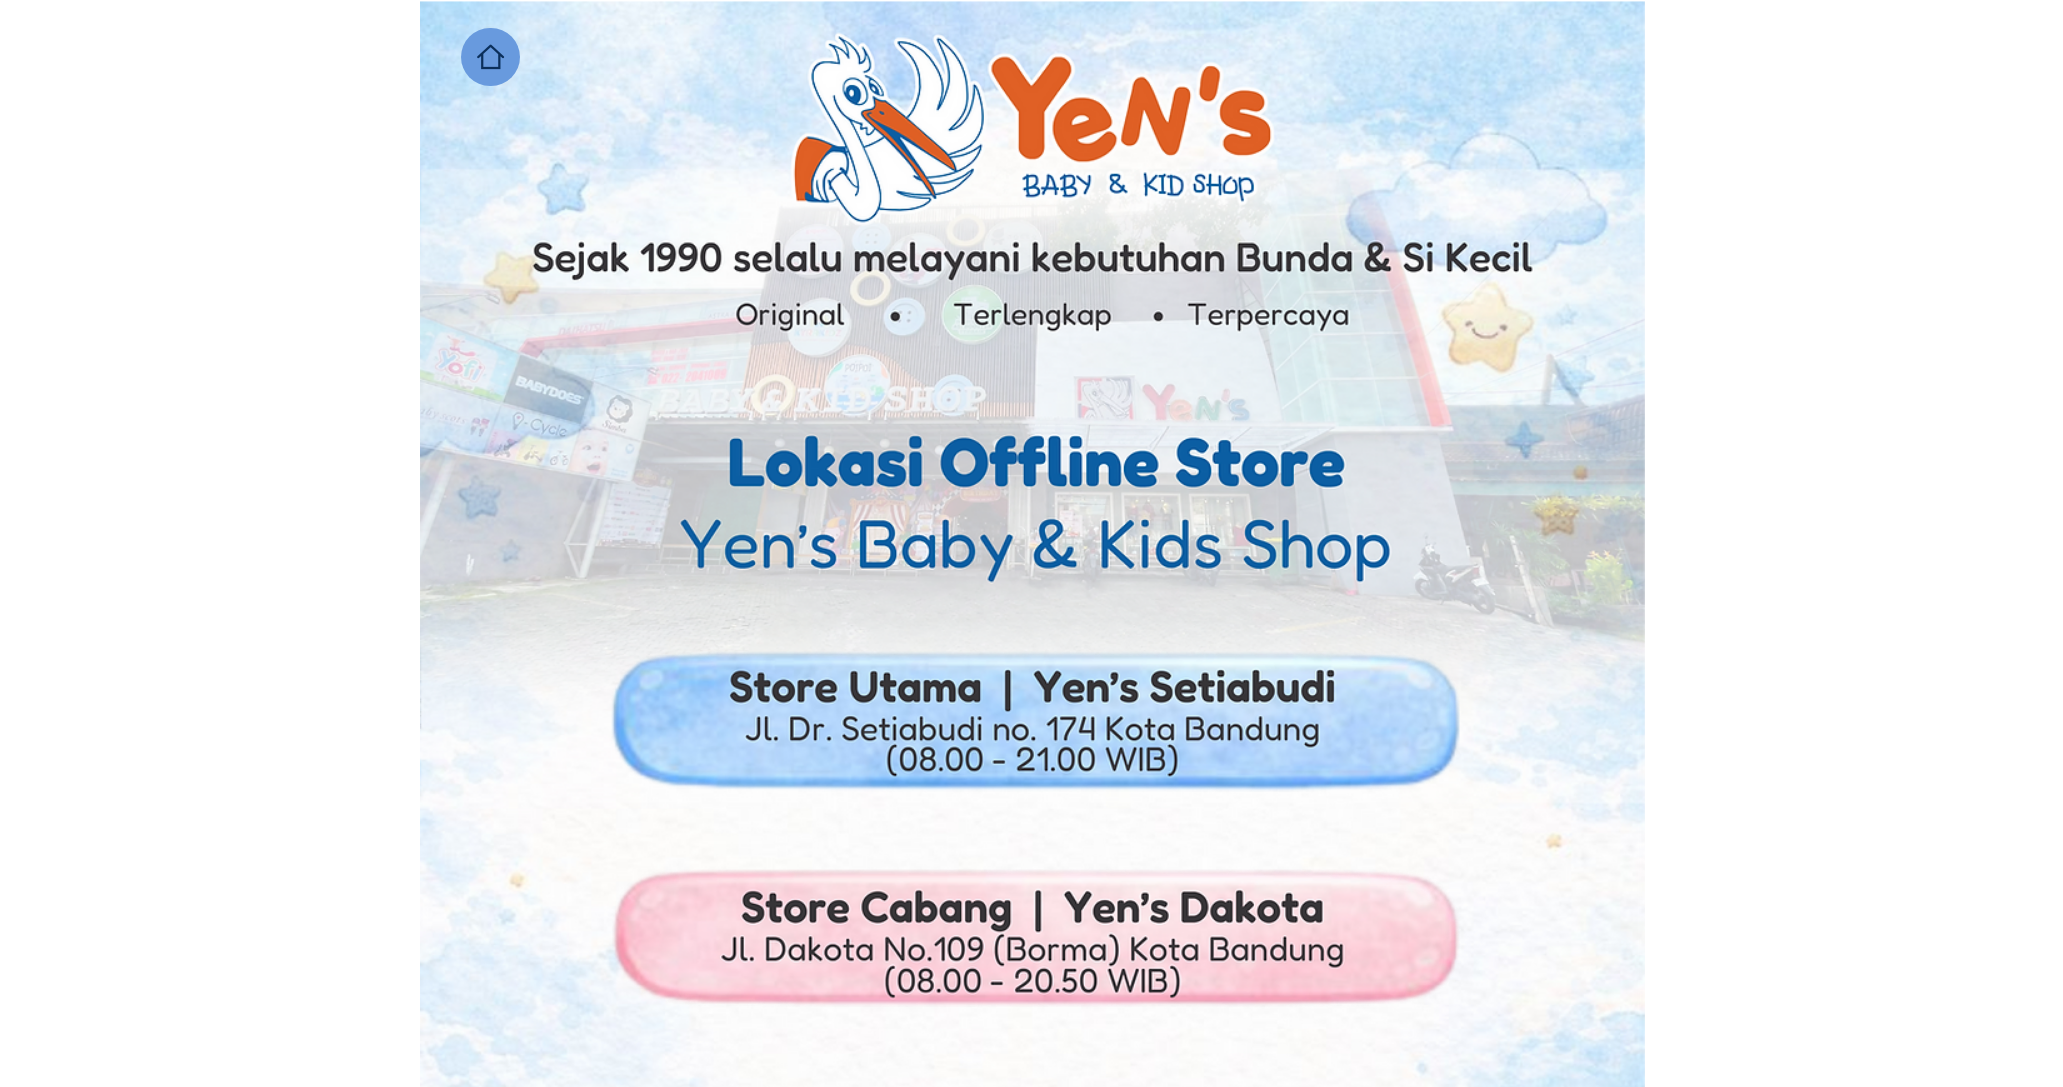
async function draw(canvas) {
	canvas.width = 2063;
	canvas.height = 1087;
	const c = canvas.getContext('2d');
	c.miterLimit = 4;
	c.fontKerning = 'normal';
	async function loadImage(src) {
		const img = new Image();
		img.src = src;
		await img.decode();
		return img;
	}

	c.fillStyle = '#fff';
	c.fillRect(0, 0, 2063, 1087);
	c.drawImage(await loadImage('img1.png'), 420, 1, 1225, 1086);
	c.fillStyle = '#689ade';
	c.beginPath();
	c.roundRect(461, 28, 59, 58, 29);
	c.fill();
	c.drawImage(await loadImage('img2.png'), 477, 44, 28, 26);
	c.drawImage(await loadImage('img3.png'), 611, 651, 849, 141);
	c.drawImage(await loadImage('img4.png'), 612, 869, 848, 138);
}

draw(document.querySelector('canvas'));
